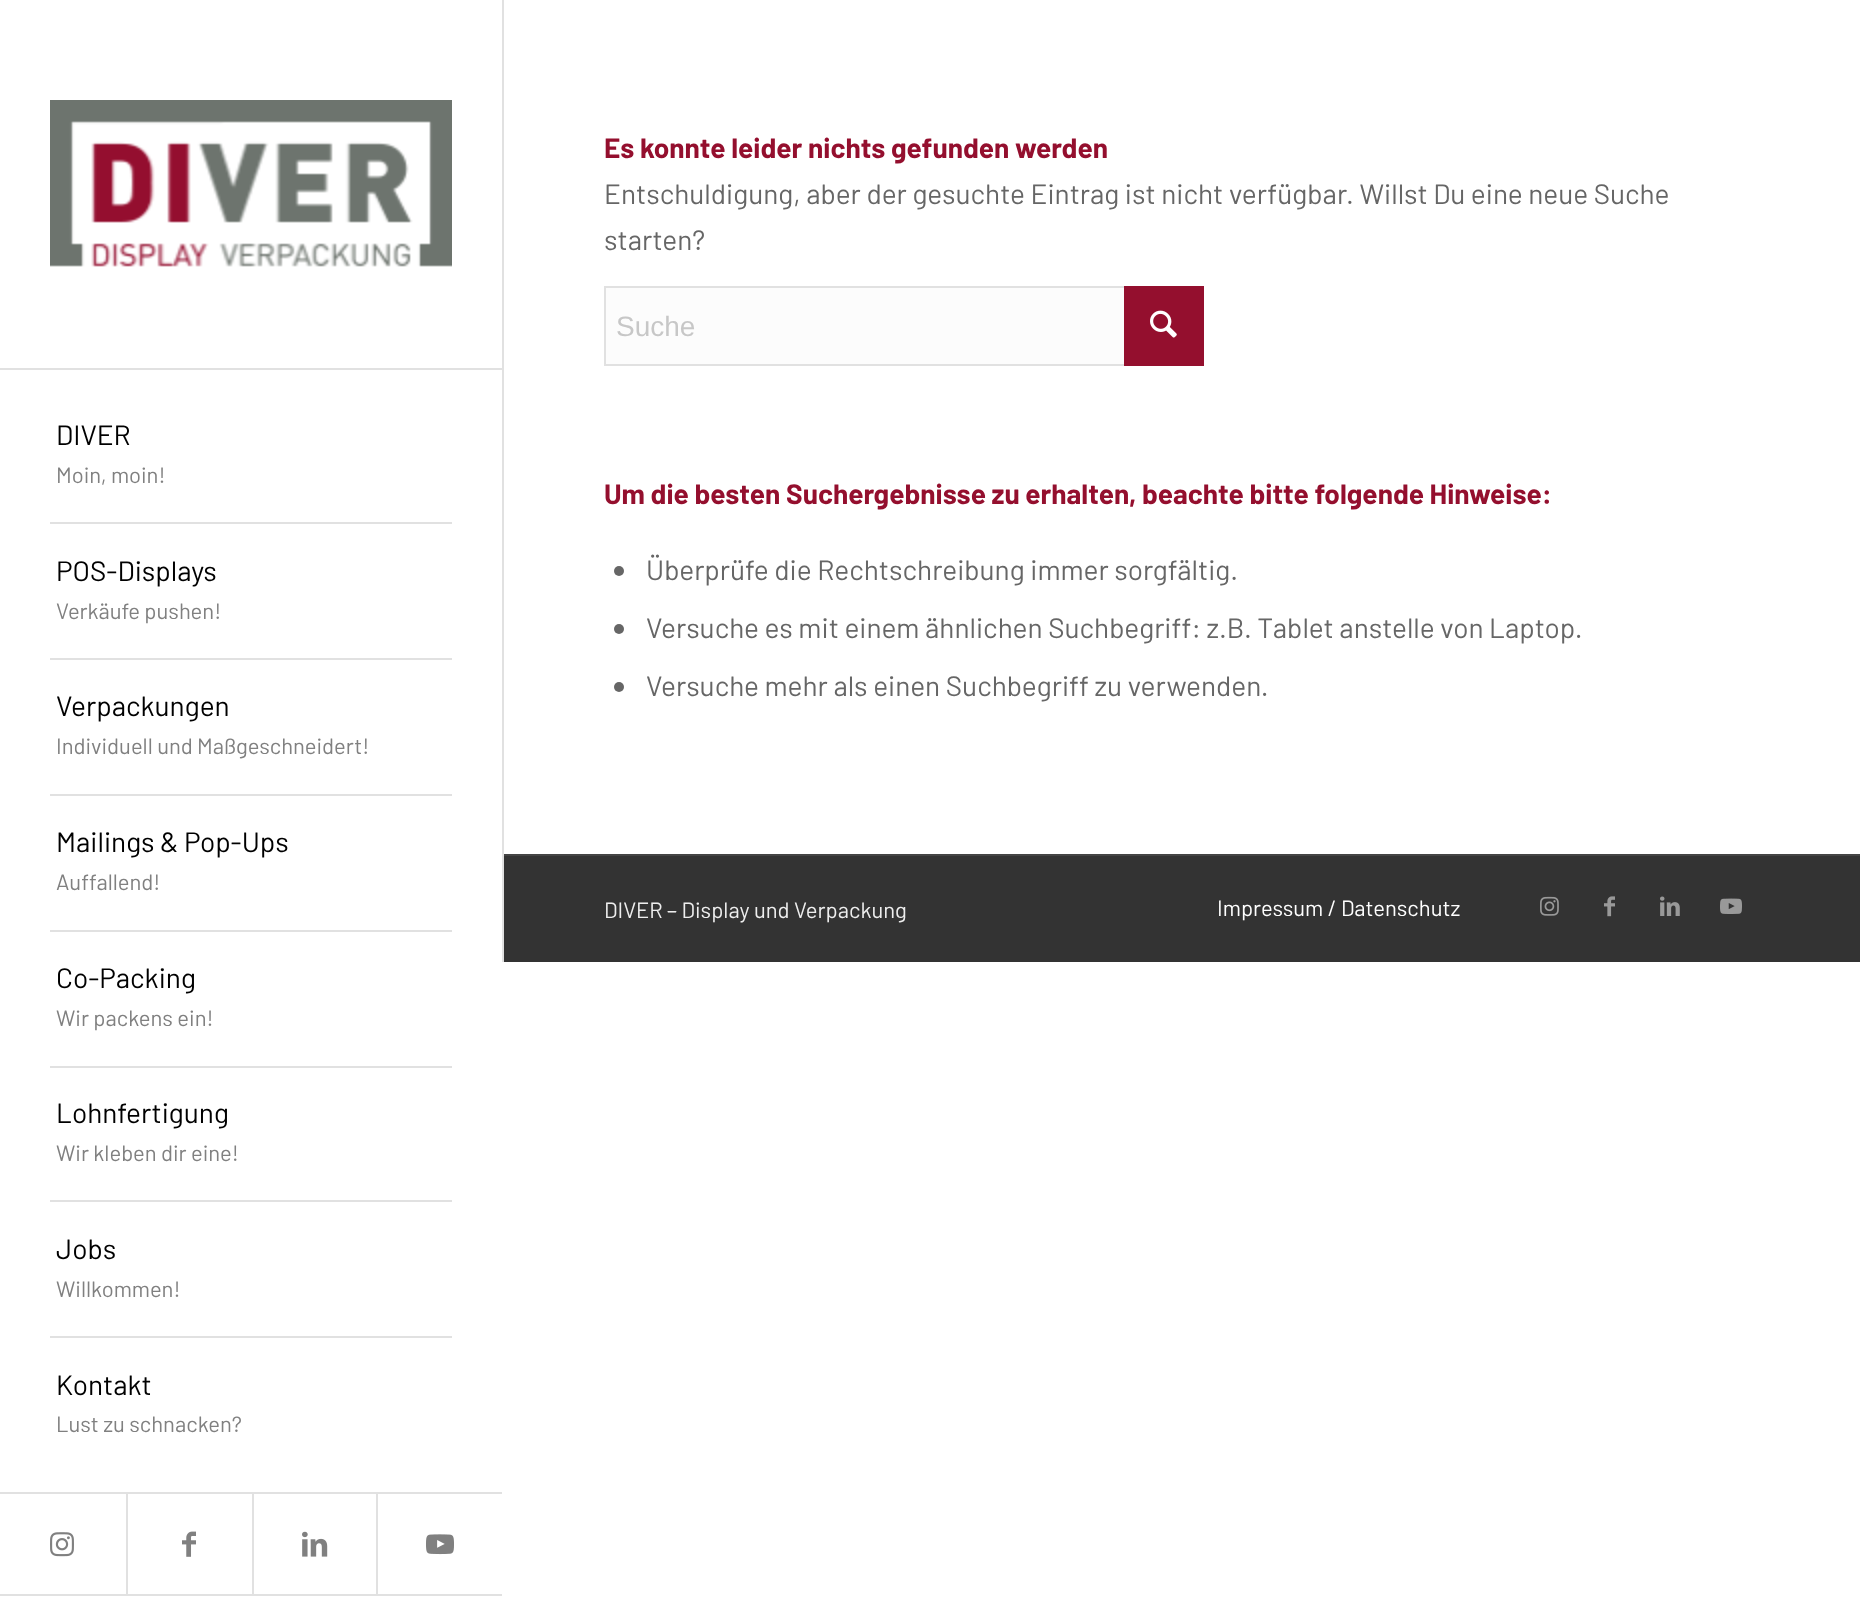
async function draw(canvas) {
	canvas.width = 1860;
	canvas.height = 1603;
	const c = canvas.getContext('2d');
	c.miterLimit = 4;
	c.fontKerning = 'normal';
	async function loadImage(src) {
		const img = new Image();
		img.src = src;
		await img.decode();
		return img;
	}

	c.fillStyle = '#fff';
	c.fillRect(0, 0, 1860, 1603);
	c.fillStyle = '#e1e1e1';
	c.fillRect(0, 1594, 502, 2);
	c.fillRect(0, 368, 502, 2);
	c.drawImage(await loadImage('img1.png'), 50, 100, 402, 167);
	c.fillRect(50, 522, 402, 2);
	c.font = '28px Barlow';
	c.fillStyle = '#000';
	c.fillText('DIVER', 56, 445);
	c.font = '22px Barlow';
	c.fillStyle = '#808080';
	c.fillText('Moin, moin!', 56, 483);
	c.fillStyle = '#e1e1e1';
	c.fillRect(50, 658, 402, 2);
	c.font = '28px Barlow';
	c.fillStyle = '#000';
	c.fillText('POS-Displays', 56, 581);
	c.font = '22px Barlow';
	c.fillStyle = '#808080';
	c.fillText('Verkäufe pushen!', 56, 619);
	c.fillStyle = '#e1e1e1';
	c.fillRect(50, 794, 402, 2);
	c.font = '28px Barlow';
	c.fillStyle = '#000';
	c.fillText('Verpackungen', 56, 716);
	c.font = '22px Barlow';
	c.fillStyle = '#808080';
	c.fillText('Individuell und Maßgeschneidert!', 56, 754);
	c.fillStyle = '#e1e1e1';
	c.fillRect(50, 930, 402, 2);
	c.font = '28px Barlow';
	c.fillStyle = '#000';
	c.fillText('Mailings & Pop-Ups', 56, 852);
	c.font = '22px Barlow';
	c.fillStyle = '#808080';
	c.fillText('Auffallend!', 56, 890);
	c.fillStyle = '#e1e1e1';
	c.fillRect(50, 1066, 402, 2);
	c.font = '28px Barlow';
	c.fillStyle = '#000';
	c.fillText('Co-Packing', 56, 988);
	c.font = '22px Barlow';
	c.fillStyle = '#808080';
	c.fillText('Wir packens ein!', 56, 1026);
	c.fillStyle = '#e1e1e1';
	c.fillRect(50, 1200, 402, 2);
	c.font = '28px Barlow';
	c.fillStyle = '#000';
	c.fillText('Lohnfertigung', 56, 1123);
	c.font = '22px Barlow';
	c.fillStyle = '#808080';
	c.fillText('Wir kleben dir eine!', 56, 1161);
	c.fillStyle = '#e1e1e1';
	c.fillRect(50, 1336, 402, 2);
	c.font = '28px Barlow';
	c.fillStyle = '#000';
	c.fillText('Jobs', 56, 1259);
	c.font = '22px Barlow';
	c.fillStyle = '#808080';
	c.fillText('Willkommen!', 56, 1297);
	c.font = '28px Barlow';
	c.fillStyle = '#000';
	c.fillText('Kontakt', 56, 1395);
	c.font = '22px Barlow';
	c.fillStyle = '#808080';
	c.fillText('Lust zu schnacken?', 56, 1432);
	c.fillStyle = '#e1e1e1';
	c.fillRect(0, 1492, 502, 2);
	c.drawImage(await loadImage('img2.png'), 50, 1532, 24, 25);
	c.fillRect(126, 1494, 2, 100);
	c.drawImage(await loadImage('img3.png'), 182, 1531, 14, 26);
	c.fillRect(252, 1494, 2, 100);
	c.drawImage(await loadImage('img4.png'), 302, 1531, 26, 26);
	c.fillRect(376, 1494, 2, 100);
	c.drawImage(await loadImage('img5.png'), 426, 1534, 28, 21);
	c.fillRect(502, 0, 2, 962);
	c.font = 'bold 28px Barlow';
	c.fillStyle = '#940f2e';
	c.fillText('Es konnte leider nichts gefunden werden', 604, 158);
	c.font = '28px Barlow';
	c.fillStyle = '#666';
	c.fillText('Entschuldigung, aber der gesuchte Eintrag ist nicht verfügbar. Willst Du eine neue Suche', 604, 204);
	c.fillText('starten?', 604, 250);
	c.fillStyle = '#fcfcfc';
	c.fillRect(606, 288, 518, 76);
	c.strokeStyle = '#e1e1e1';
	c.lineWidth = 2;
	c.strokeRect(605, 287, 598, 78);
	c.font = '28px Liberation Sans';
	c.fillStyle = '#c7c7c7';
	c.fillText('Suche', 616, 336);
	c.fillStyle = '#940f2e';
	c.fillRect(1124, 286, 80, 80);
	c.drawImage(await loadImage('img6.png'), 1150, 310, 27, 28);
	c.font = 'bold 28px Barlow';
	c.fillText('Um die besten Suchergebnisse zu erhalten, beachte bitte folgende Hinweise:', 604, 504);
	c.fillStyle = '#666';
	c.beginPath();
	c.arc(619, 571, 5, 0, 2 * Math.PI);
	c.fill();
	c.font = '28px Barlow';
	c.fillText('Überprüfe die Rechtschreibung immer sorgfältig.', 646, 580);
	c.beginPath();
	c.arc(619, 629, 5, 0, 2 * Math.PI);
	c.fill();
	c.fillText('Versuche es mit einem ähnlichen Suchbegriff: z.B. Tablet anstelle von Laptop.', 646, 638);
	c.beginPath();
	c.arc(619, 687, 5, 0, 2 * Math.PI);
	c.fill();
	c.fillText('Versuche mehr als einen Suchbegriff zu verwenden.', 646, 696);
	c.fillStyle = '#333';
	c.fillRect(504, 856, 1356, 106);
	c.fillStyle = '#444';
	c.fillRect(504, 854, 1356, 2);
	c.font = '22px Barlow';
	c.fillStyle = '#eee';
	c.fillText('DIVER – Display und Verpackung', 604, 918);
	c.fillStyle = '#fff';
	c.fillText('Impressum / Datenschutz', 1217, 916);
	c.drawImage(await loadImage('img7.png'), 1540, 896, 19, 20);
	c.drawImage(await loadImage('img8.png'), 1604, 896, 11, 21);
	c.drawImage(await loadImage('img9.png'), 1660, 896, 20, 20);
	c.drawImage(await loadImage('img10.png'), 1720, 898, 22, 16);
}

draw(document.querySelector('canvas'));
